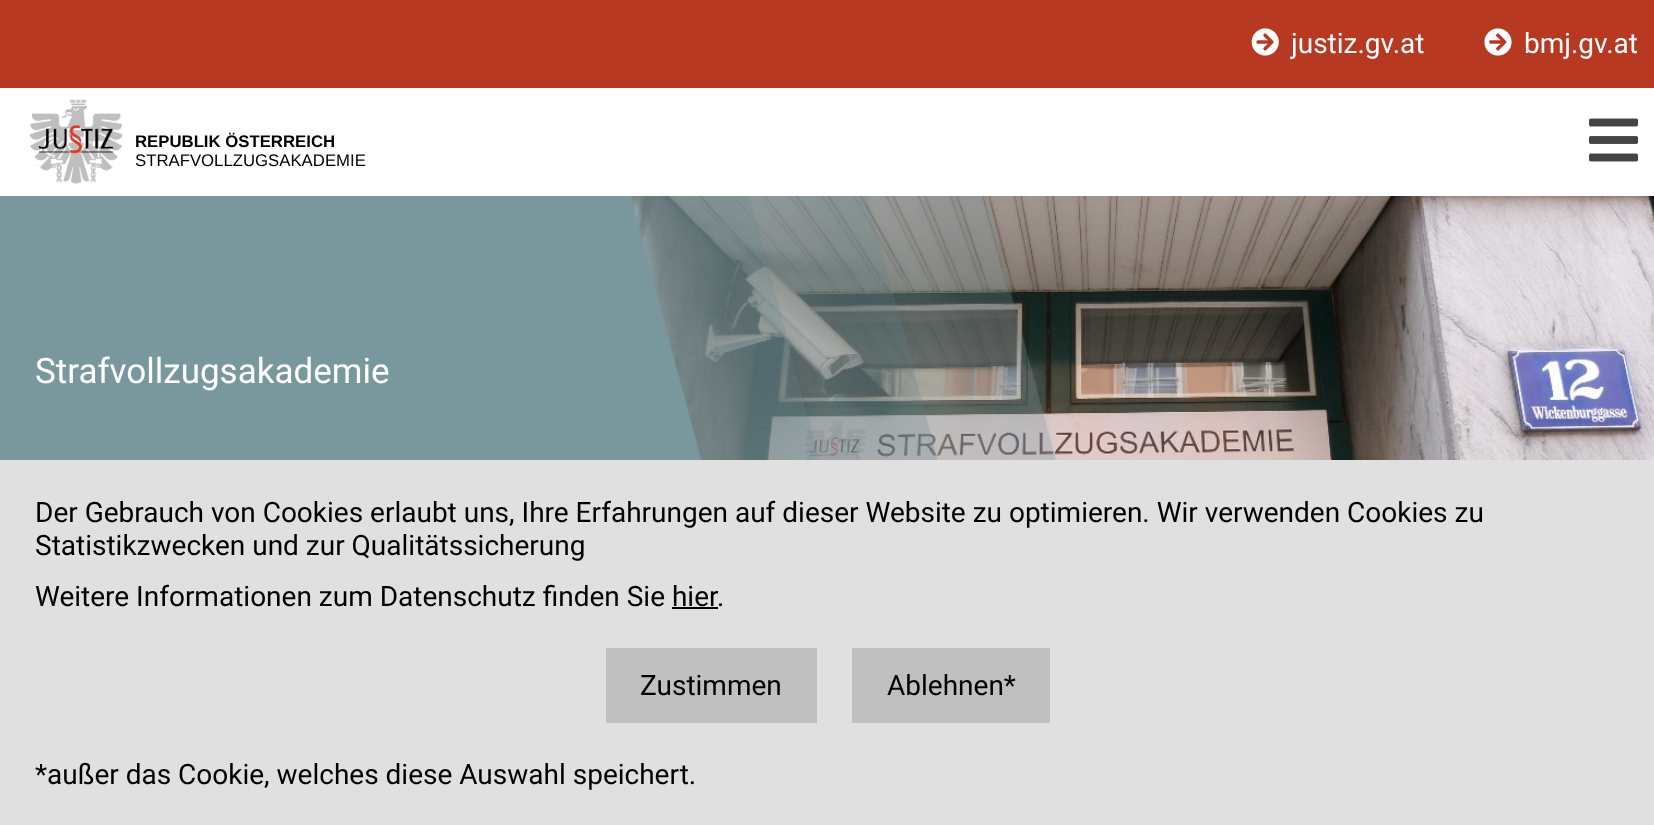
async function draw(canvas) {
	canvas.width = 1654;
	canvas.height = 825;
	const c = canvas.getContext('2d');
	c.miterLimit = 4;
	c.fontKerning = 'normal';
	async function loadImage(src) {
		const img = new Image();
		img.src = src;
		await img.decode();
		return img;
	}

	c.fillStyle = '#fff';
	c.fillRect(0, 0, 1654, 825);
	c.fillStyle = '#b83921';
	c.fillRect(0, 0, 1654, 88);
	c.drawImage(await loadImage('img1.png'), 1251, 28, 28, 28);
	c.font = '28px Roboto';
	c.fillStyle = '#fff';
	c.fillText('justiz.gv.at', 1291, 53);
	c.drawImage(await loadImage('img2.png'), 1484, 28, 28, 28);
	c.fillText('bmj.gv.at', 1524, 53);
	c.drawImage(await loadImage('img3.png'), 29, 99, 94, 85);
	c.font = 'bold 16.75px Liberation Sans';
	c.fillStyle = '#000';
	c.fillText('REPUBLIK ÖSTERREICH', 135, 147);
	c.font = '16.75px Liberation Sans';
	c.fillText('STRAFVOLLZUGSAKADEMIE', 135, 166);
	c.drawImage(await loadImage('img4.png'), 1589, 118, 49, 44);
	c.drawImage(await loadImage('img6.png'), 630, 196, 1024, 264);
	c.drawImage(await loadImage('img5.png'), 0, 196, 1057, 264);
	c.font = '35px Roboto';
	c.fillStyle = '#fff';
	c.fillText('Strafvollzugsakademie', 35, 383);
	c.fillStyle = '#e0e0e0';
	c.fillRect(0, 460, 1654, 365);
	c.font = '28px Roboto';
	c.fillStyle = '#000';
	for (const [text, x, y] of [
		['Der Gebrauch von Cookies erlaubt uns, Ihre Erfahrungen auf dieser Website zu optimieren. Wir verwenden Cookies zu', 35, 522],
		['Statistikzwecken und zur Qualitätssicherung', 35, 555],
		['Weitere Informationen zum Datenschutz finden Sie hier', 35, 606],
		['.', 717, 606],
	]) {
		c.fillText(text, x, y);
	}
	c.fillRect(672, 607, 46, 2);
	c.fillStyle = '#c0c0c0';
	c.fillRect(606, 648, 211, 75);
	c.fillStyle = '#000';
	c.fillText('Zustimmen', 640, 695);
	c.fillStyle = '#c0c0c0';
	c.fillRect(852, 648, 198, 75);
	c.fillStyle = '#000';
	c.fillText('Ablehnen*', 887, 695);
	c.fillText('*außer das Cookie, welches diese Auswahl speichert.', 35, 784);
}

draw(document.querySelector('canvas'));
